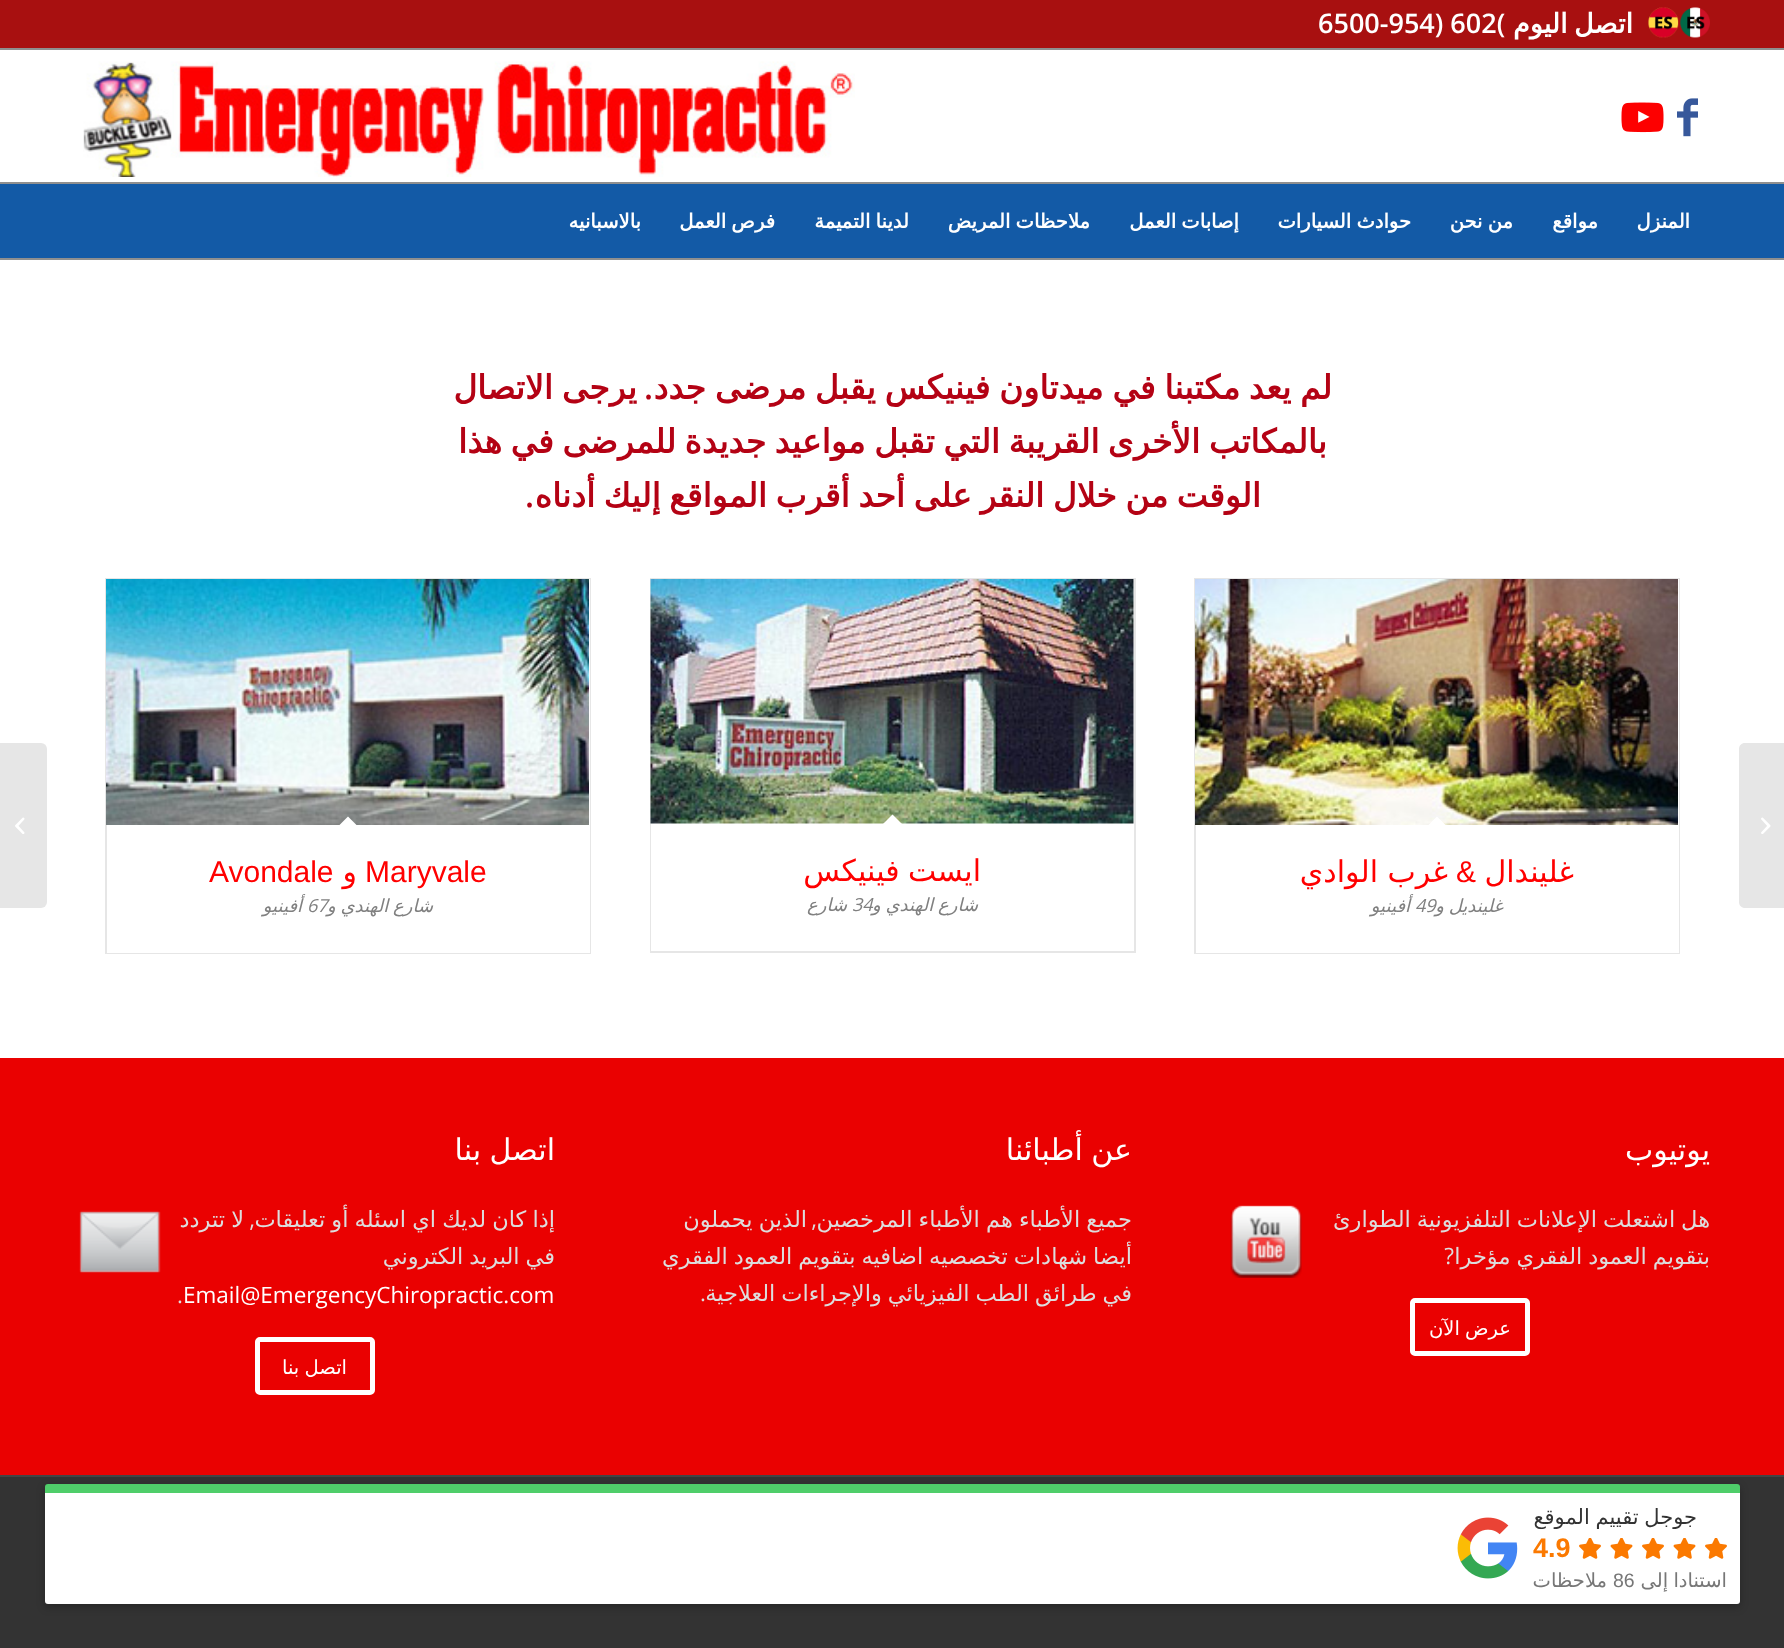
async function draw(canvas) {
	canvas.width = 1784;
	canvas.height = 1648;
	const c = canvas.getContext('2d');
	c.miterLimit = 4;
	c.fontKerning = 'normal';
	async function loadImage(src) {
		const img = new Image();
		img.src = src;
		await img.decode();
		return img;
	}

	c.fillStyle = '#333';
	c.fillRect(0, 0, 1784, 1648);
	for (const [x, y, w, h, color] of [
		[0, 50, 1784, 1008, '#fff'],
		[0, 0, 1784, 48, '#a81010'],
		[0, 48, 1784, 2, '#8f8f8f'],
	]) {
		c.fillStyle = color;
		c.fillRect(x, y, w, h);
	}
	c.drawImage(await loadImage('img1.png'), 1648, 7, 62, 31);
	c.wordSpacing = '-2px';
	c.direction = 'rtl';
	c.font = 'bold 27px DejaVu Sans';
	c.fillStyle = '#fff';
	c.fillText('اتصل اليوم', 1633, 33);
	c.wordSpacing = '0px';
	c.direction = 'ltr';
	c.font = '600 27px Open Sans';
	c.fillText('6500-954) 602(', 1318, 33);
	c.fillStyle = '#8f8f8f';
	c.fillRect(0, 258, 1784, 2);
	c.drawImage(await loadImage('img2.png'), 1677, 98, 21, 39);
	c.drawImage(await loadImage('img3.png'), 1621, 102, 43, 31);
	c.drawImage(await loadImage('img4.png'), 83, 61, 772, 116);
	c.fillStyle = '#135aa6';
	c.fillRect(0, 184, 1784, 74);
	c.fillStyle = '#8f8f8f';
	c.fillRect(0, 182, 1784, 2);
	c.direction = 'rtl';
	c.font = 'bold 19.5px DejaVu Sans';
	c.fillStyle = '#fff';
	c.fillText('المنزل', 1690, 228);
	c.fillText('مواقع', 1598, 228);
	c.wordSpacing = '-1px';
	for (const [text, x, y] of [
		['من نحن', 1513, 228],
		['حوادث السيارات', 1411, 228],
		['إصابات العمل', 1239, 228],
		['ملاحظات المريض', 1090, 228],
		['لدينا التميمة', 909, 228],
		['فرص العمل', 775, 228],
	]) {
		c.fillText(text, x, y);
	}
	c.wordSpacing = '0px';
	c.fillText('بالاسبانيه', 641, 228);
	c.fillStyle = '#e6e6e6';
	c.beginPath();
	c.moveTo(1745, 743);
	c.lineTo(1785, 743);
	c.lineTo(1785, 908);
	c.lineTo(1745, 908);
	c.bezierCurveTo(1741.5, 908, 1739, 905.5, 1739, 902);
	c.lineTo(1739, 749);
	c.bezierCurveTo(1739, 745.5, 1741.5, 743, 1745, 743);
	c.closePath();
	c.fill();
	c.drawImage(await loadImage('img5.png'), 1761, 817, 10, 17);
	c.wordSpacing = '-1.75px';
	c.font = 'bold 33px DejaVu Sans';
	c.fillStyle = '#b40214';
	c.fillText('لم يعد مكتبنا في ميدتاون فينيكس يقبل مرضى جدد', 1332, 399);
	c.wordSpacing = '0px';
	c.font = '600 33px Open Sans';
	c.fillText('.', 653, 399);
	c.wordSpacing = '-1.75px';
	c.font = 'bold 33px DejaVu Sans';
	c.fillText('يرجى الاتصال', 637, 399);
	c.wordSpacing = '-2px';
	c.fillText('بالمكاتب الأخرى القريبة التي تقبل مواعيد جديدة للمرضى في هذا', 1327, 453);
	c.fillText('الوقت من خلال النقر على أحد أقرب المواقع إليك أدناه', 1261, 507);
	c.wordSpacing = '0px';
	c.font = '600 33px Open Sans';
	c.fillText('.', 534, 507);
	c.strokeStyle = '#e6e6e6';
	c.lineWidth = 2;
	c.strokeRect(1195, 579, 484, 374);
	c.fillStyle = '#fff';
	c.fillRect(1196, 579, 483, 374);
	c.drawImage(await loadImage('img6.png'), 1195, 579, 483, 246);
	c.beginPath();
	c.moveTo(1437, 816.5);
	c.lineTo(1447.5, 827);
	c.lineTo(1437, 837.5);
	c.lineTo(1426.5, 827);
	c.closePath();
	c.fill();
	c.font = '30px DejaVu Sans';
	c.fillStyle = '#f00';
	c.fillText('غليندال', 1574, 882);
	c.font = '30px Liberation Sans';
	c.fillText('&', 1476, 882);
	c.font = '30px DejaVu Sans';
	c.fillText('غرب الوادي', 1448, 882);
	c.direction = 'ltr';
	c.font = 'italic 18px Open Sans';
	c.fillStyle = '#808080';
	c.fillText('49', 1415, 912);
	c.wordSpacing = '-1px';
	c.direction = 'rtl';
	c.font = 'italic 18px DejaVu Sans';
	c.fillText('غلينديل و', 1503, 912);
	c.wordSpacing = '0px';
	c.fillText('أفينيو', 1410, 912);
	c.strokeRect(651, 579, 484, 373);
	c.fillStyle = '#fff';
	c.fillRect(651, 579, 483, 372);
	c.drawImage(await loadImage('img7.png'), 650, 579, 484, 245);
	c.beginPath();
	c.moveTo(892.5, 814.5);
	c.lineTo(903, 825);
	c.lineTo(892.5, 836);
	c.lineTo(882, 825);
	c.closePath();
	c.fill();
	c.wordSpacing = '-1px';
	c.font = '30px DejaVu Sans';
	c.fillStyle = '#f00';
	c.fillText('ايست فينيكس', 981, 881);
	c.wordSpacing = '0px';
	c.direction = 'ltr';
	c.font = 'italic 18px Open Sans';
	c.fillStyle = '#808080';
	c.fillText('34', 852, 911);
	c.wordSpacing = '-1px';
	c.direction = 'rtl';
	c.font = 'italic 18px DejaVu Sans';
	c.fillText('شارع الهندي و', 978, 911);
	c.wordSpacing = '0px';
	c.fillText('شارع', 847, 911);
	c.strokeRect(106, 579, 484, 374);
	c.fillStyle = '#fff';
	c.fillRect(107, 579, 483, 374);
	c.drawImage(await loadImage('img8.png'), 106, 579, 483, 246);
	c.beginPath();
	c.moveTo(348, 816.5);
	c.lineTo(358.5, 827);
	c.lineTo(348, 837.5);
	c.lineTo(337.5, 827);
	c.closePath();
	c.fill();
	c.direction = 'ltr';
	c.font = '30px Liberation Sans';
	c.fillStyle = '#f00';
	c.fillText('Maryvale', 365, 882);
	c.direction = 'rtl';
	c.font = '30px DejaVu Sans';
	c.fillText('و', 357, 882);
	c.direction = 'ltr';
	c.font = '30px Liberation Sans';
	c.fillText('Avondale', 209, 882);
	c.font = 'italic 18px Open Sans';
	c.fillStyle = '#808080';
	c.fillText('67', 307, 912);
	c.wordSpacing = '-1px';
	c.direction = 'rtl';
	c.font = 'italic 18px DejaVu Sans';
	c.fillText('شارع الهندي و', 433, 912);
	c.wordSpacing = '0px';
	c.fillText('أفينيو', 302, 912);
	c.fillStyle = '#ea0101';
	c.fillRect(0, 1058, 1784, 417);
	c.font = '30px DejaVu Sans';
	c.fillStyle = '#fff';
	c.fillText('يوتيوب', 1710, 1160);
	c.wordSpacing = '-1.25px';
	c.font = '22.5px DejaVu Sans';
	c.fillStyle = '#ddd';
	c.fillText('هل اشتعلت الإعلانات التلفزيونية الطوارئ', 1710, 1227);
	c.drawImage(await loadImage('img9.png'), 1230, 1205, 72, 73);
	c.fillText('بتقويم العمود الفقري مؤخرا', 1710, 1264);
	c.wordSpacing = '0px';
	c.font = '22.5px Open Sans';
	c.fillText('?', 1454, 1264);
	c.beginPath();
	c.roundRect(1412.5, 1300.5, 115, 53, 2.5);
	c.strokeStyle = '#fff';
	c.lineWidth = 5;
	c.stroke();
	c.wordSpacing = '-1px';
	c.font = '19.5px DejaVu Sans';
	c.fillStyle = '#fff';
	c.fillText('عرض الآن', 1511, 1335);
	c.font = '30px DejaVu Sans';
	c.fillText('عن أطبائنا', 1132, 1160);
	c.font = '22.5px DejaVu Sans';
	c.fillStyle = '#ddd';
	c.fillText('جميع الأطباء هم الأطباء المرخصين', 1132, 1227);
	c.wordSpacing = '0px';
	c.font = '22.5px Open Sans';
	c.fillText(',', 817, 1227);
	c.wordSpacing = '-1px';
	c.font = '22.5px DejaVu Sans';
	c.fillText('الذين يحملون', 807, 1227);
	c.wordSpacing = '-1.25px';
	c.fillText('أيضا شهادات تخصصيه اضافيه بتقويم العمود الفقري', 1132, 1264);
	c.fillText('في طرائق الطب الفيزيائي والإجراءات العلاجية', 1132, 1301);
	c.wordSpacing = '0px';
	c.font = '22.5px Open Sans';
	c.fillText('.', 706, 1301);
	c.wordSpacing = '-1px';
	c.font = '30px DejaVu Sans';
	c.fillStyle = '#fff';
	c.fillText('اتصل بنا', 555, 1160);
	c.font = '22.5px DejaVu Sans';
	c.fillStyle = '#ddd';
	c.fillText('إذا كان لديك اي اسئله أو تعليقات', 555, 1227);
	c.wordSpacing = '0px';
	c.font = '22.5px Open Sans';
	c.fillText(',', 255, 1227);
	c.wordSpacing = '-1px';
	c.font = '22.5px DejaVu Sans';
	c.fillText('لا تتردد', 244, 1227);
	c.drawImage(await loadImage('img10.png'), 79, 1210, 82, 63);
	c.wordSpacing = '-1.25px';
	c.fillText('في البريد الكتروني', 555, 1264);
	c.wordSpacing = '0px';
	c.direction = 'ltr';
	c.font = '22.5px Open Sans';
	c.fillStyle = '#fff';
	c.fillText('Email@EmergencyChiropractic.com', 183, 1303);
	c.fillStyle = '#ddd';
	c.fillText('.', 177, 1303);
	c.beginPath();
	c.roundRect(257.5, 1339.5, 115, 53, 2.5);
	c.stroke();
	c.wordSpacing = '-1px';
	c.direction = 'rtl';
	c.font = '19.5px DejaVu Sans';
	c.fillStyle = '#fff';
	c.fillText('اتصل بنا', 347, 1374);
	c.fillStyle = '#444';
	c.fillRect(0, 1475, 1784, 2);
	c.fillStyle = '#e6e6e6';
	c.beginPath();
	c.roundRect(0, 743, 47, 165, [0, 6, 6, 0]);
	c.fill();
	c.drawImage(await loadImage('img11.png'), 15, 817, 10, 17);
	c.fillStyle = '#00000042';
	c.filter = 'blur(4px)';
	c.beginPath();
	c.roundRect(45, 1487, 1695, 120, 3);
	c.fill();
	c.filter = 'none';
	c.fillStyle = '#4fce6a';
	c.beginPath();
	c.roundRect(45, 1484, 1695, 9, [3, 3, 0, 0]);
	c.fill();
	c.fillStyle = '#fff';
	c.beginPath();
	c.roundRect(45, 1493, 1695, 111, [0, 0, 3, 3]);
	c.fill();
	c.save();
	c.beginPath();
	c.rect(1533, 1505, 195, 24);
	c.clip();
	c.font = '21px DejaVu Sans';
	c.fillStyle = '#333';
	c.fillText('جوجل تقييم الموقع', 1697, 1524);
	c.restore();
	c.drawImage(await loadImage('img12.png'), 1705, 1538, 22, 21);
	c.drawImage(await loadImage('img13.png'), 1673, 1538, 23, 21);
	c.drawImage(await loadImage('img12.png'), 1642, 1538, 22, 21);
	c.drawImage(await loadImage('img13.png'), 1610, 1538, 23, 21);
	c.drawImage(await loadImage('img12.png'), 1579, 1538, 22, 21);
	c.wordSpacing = '0px';
	c.direction = 'ltr';
	c.font = 'bold 27px Liberation Sans';
	c.fillStyle = '#fb7900';
	c.fillText('4.9', 1533, 1557);
	c.wordSpacing = '-1px';
	c.direction = 'rtl';
	c.font = '19.5px DejaVu Sans';
	c.fillStyle = '#777';
	c.fillText('استنادا إلى', 1727, 1587);
	c.wordSpacing = '0px';
	c.direction = 'ltr';
	c.font = '19.5px Liberation Sans';
	c.fillText('86', 1613, 1587);
	c.direction = 'rtl';
	c.font = '19.5px DejaVu Sans';
	c.fillText('ملاحظات', 1607, 1587);
	c.drawImage(await loadImage('img14.png'), 1457, 1517, 61, 62);
}

draw(document.querySelector('canvas'));
